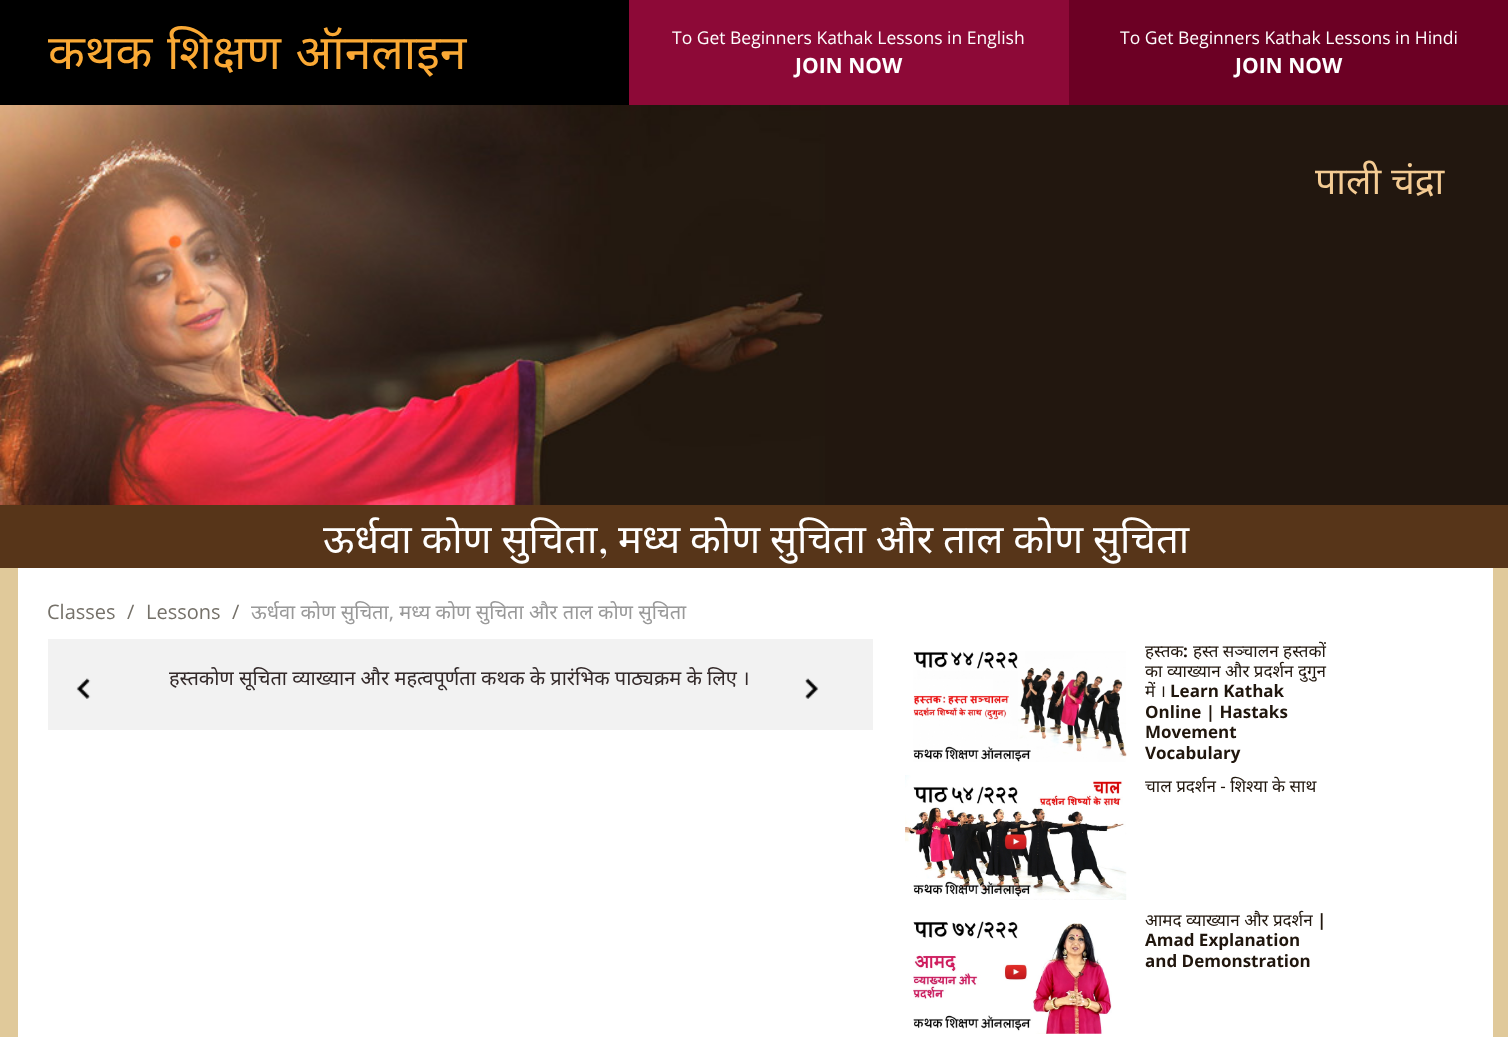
async function draw(canvas) {
	canvas.width = 1508;
	canvas.height = 1037;
	const c = canvas.getContext('2d');
	c.miterLimit = 4;
	c.fontKerning = 'normal';
	async function loadImage(src) {
		const img = new Image();
		img.src = src;
		await img.decode();
		return img;
	}

	c.fillStyle = '#000';
	c.fillRect(0, 0, 1508, 1037);
	c.wordSpacing = '2px';
	c.font = '48px Noto Sans';
	c.fillStyle = '#faa935';
	c.fillText('कथक शिक्षण ऑनलाइन', 48, 69);
	c.fillStyle = '#8d0937';
	c.fillRect(629, 0, 440, 105);
	c.wordSpacing = '0px';
	c.font = '17.5px Open Sans';
	c.fillStyle = '#fff';
	c.fillText('To Get Beginners Kathak Lessons in English', 672, 44);
	c.font = 'bold 21px Open Sans';
	c.fillText('JOIN NOW', 795, 73);
	c.fillStyle = '#6c0024';
	c.fillRect(1069, 0, 439, 105);
	c.font = '17.5px Open Sans';
	c.fillStyle = '#fff';
	c.fillText('To Get Beginners Kathak Lessons in Hindi', 1120, 44);
	c.font = 'bold 21px Open Sans';
	c.fillText('JOIN NOW', 1235, 73);
	c.fillStyle = '#22170f';
	c.fillRect(825, 105, 683, 400);
	c.drawImage(await loadImage('img1.png'), 0, 105, 825, 400);
	c.font = '37.5px Noto Sans';
	c.fillStyle = '#f4cb93';
	c.fillText('पाली चंद्रा', 1315, 194);
	c.fillStyle = '#573519';
	c.fillRect(0, 505, 1508, 63);
	c.wordSpacing = '-0.5px';
	c.font = '40px Noto Sans';
	c.fillStyle = '#fff';
	c.fillText('ऊर्धवा कोण सुचिता', 323, 553);
	c.wordSpacing = '0px';
	c.font = '40px Playfair Display';
	c.fillText(',', 598, 553);
	c.wordSpacing = '-0.5px';
	c.font = '40px Noto Sans';
	c.fillText('मध्य कोण सुचिता और ताल कोण सुचिता', 618, 553);
	c.fillStyle = '#e0c99a';
	c.fillRect(0, 568, 1508, 469);
	c.fillStyle = '#fff';
	c.fillRect(18, 568, 1475, 469);
	c.wordSpacing = '0px';
	c.font = '20px Open Sans';
	c.fillStyle = '#757169';
	for (const [text, x, y] of [
		['Classes', 47, 619],
		['/', 127, 619],
		['Lessons', 146, 619],
		['/', 232, 619],
	]) {
		c.fillText(text, x, y);
	}
	c.font = '20px Noto Sans';
	c.fillStyle = '#999';
	c.fillText('ऊर्धवा कोण सुचिता, मध्य कोण सुचिता और ताल कोण सुचिता', 251, 619);
	c.fillStyle = '#f2f2f2';
	c.fillRect(48, 639, 825, 91);
	c.drawImage(await loadImage('img2.png'), 76, 678, 15, 21);
	c.fillStyle = '#332929';
	c.fillText('हस्तकोण सूचिता व्याख्यान और महत्वपूर्णता कथक के प्रारंभिक पाठ्यक्रम के लिए ।', 169, 685);
	c.drawImage(await loadImage('img3.png'), 805, 678, 14, 21);
	c.drawImage(await loadImage('img4.png'), 913, 651, 214, 111);
	c.font = '17px Noto Sans';
	c.fillStyle = '#20160d';
	c.fillText('हस्तक', 1145, 657);
	c.font = 'bold 17px Open Sans';
	c.fillText(':', 1183, 657);
	c.font = '17px Noto Sans';
	for (const [text, x, y] of [
		['हस्त सञ्चालन हस्तकों', 1193, 657],
		['का व्याख्यान और प्रदर्शन दुगुन', 1145, 677],
		['में ।', 1145, 697],
	]) {
		c.fillText(text, x, y);
	}
	c.font = 'bold 17px Open Sans';
	for (const [text, x, y] of [
		['Learn Kathak', 1170, 697],
		['Online | Hastaks', 1145, 718],
		['Movement', 1145, 738],
		['Vocabulary', 1145, 759],
	]) {
		c.fillText(text, x, y);
	}
	c.drawImage(await loadImage('img5.png'), 905, 775, 222, 125);
	c.font = '17px Noto Sans';
	c.fillText('चाल प्रदर्शन - शिश्या के साथ', 1145, 792);
	c.drawImage(await loadImage('img6.png'), 913, 921, 199, 113);
	c.fillText('आमद व्याख्यान और प्रदर्शन', 1145, 926);
	c.font = 'bold 17px Open Sans';
	for (const [text, x, y] of [
		['|', 1317, 926],
		['Amad Explanation', 1145, 946],
		['and Demonstration', 1145, 967],
	]) {
		c.fillText(text, x, y);
	}
}

draw(document.querySelector('canvas'));
